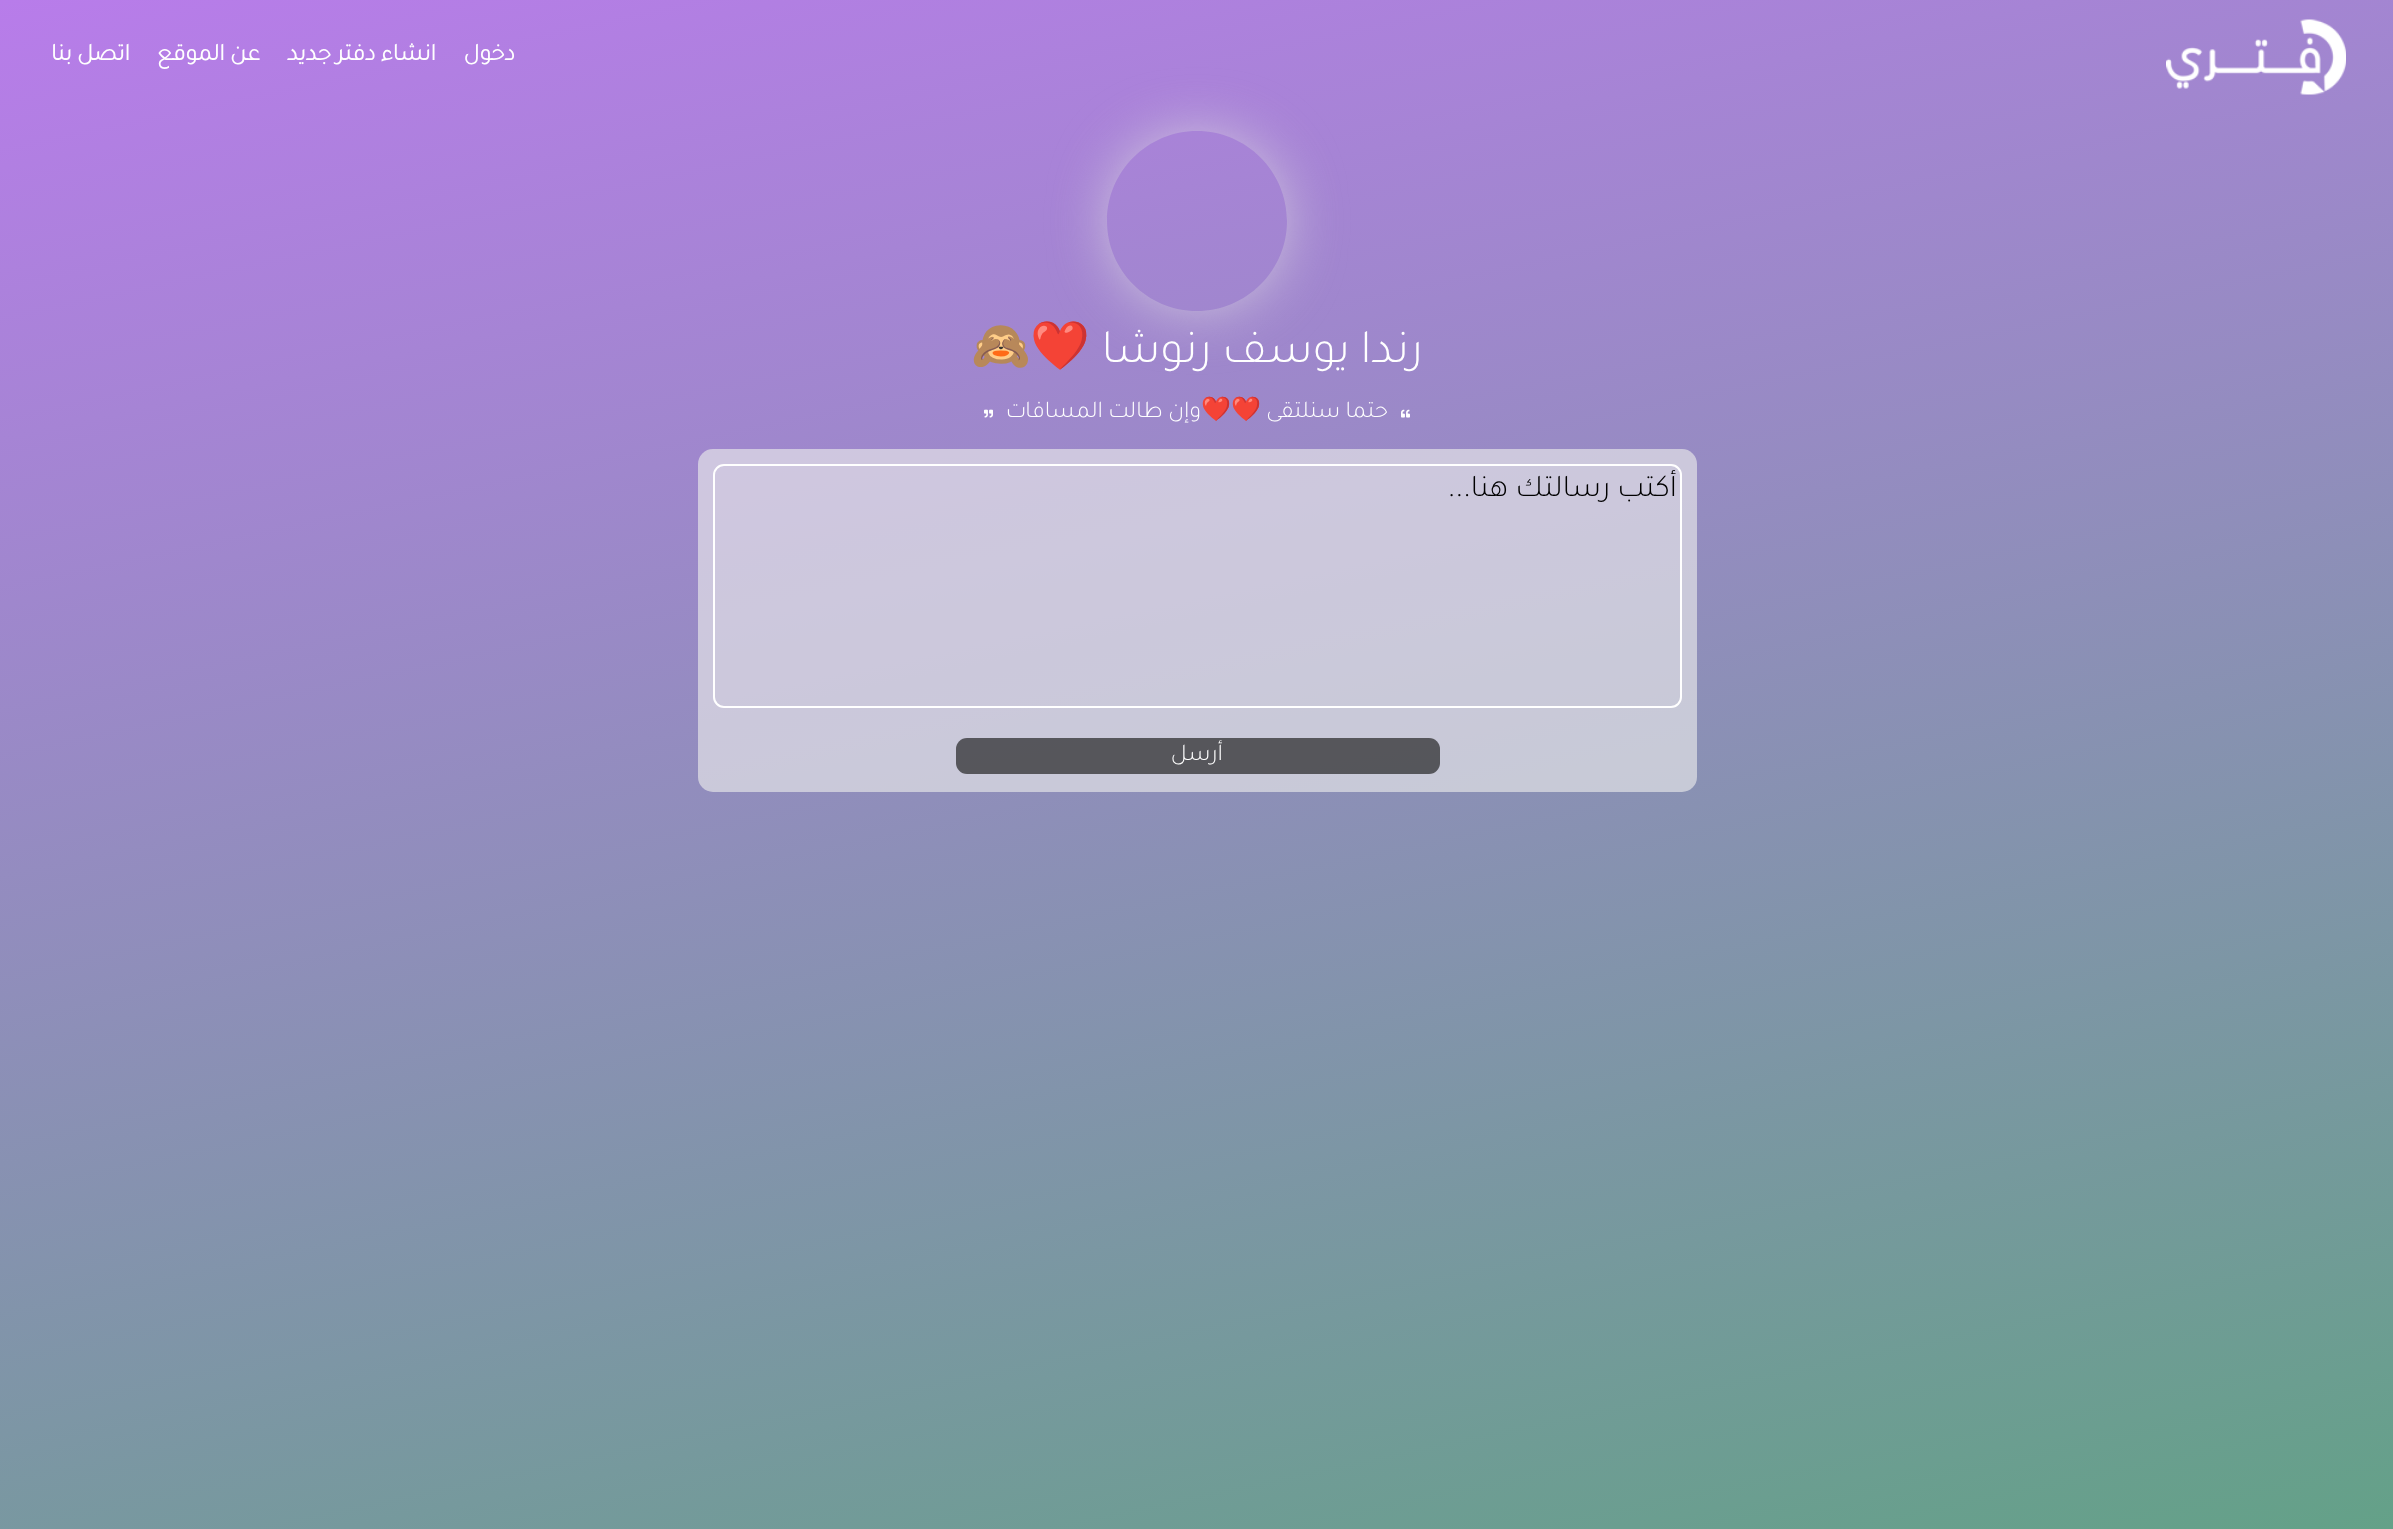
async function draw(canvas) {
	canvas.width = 2393;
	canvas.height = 1529;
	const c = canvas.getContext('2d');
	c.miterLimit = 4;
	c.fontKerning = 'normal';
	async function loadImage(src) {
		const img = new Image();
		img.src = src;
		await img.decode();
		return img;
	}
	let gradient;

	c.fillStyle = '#fff';
	c.fillRect(0, 0, 2393, 1529);
	gradient = c.createLinearGradient(1404, 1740, 990, -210);
	gradient.addColorStop(0, '#64a188');
	gradient.addColorStop(1, '#b87cea');
	c.fillStyle = gradient;
	c.fillRect(0, 0, 2393, 1529);
	c.drawImage(await loadImage('img1.png'), 2166, 19, 180, 76);
	c.direction = 'rtl';
	c.font = 'bold 24px Tajawal';
	c.fillStyle = '#fff';
	for (const [text, x, y] of [
		['دخول', 515, 60],
		['انشاء دفتر جديد', 436, 60],
		['عن الموقع', 260, 60],
		['اتصل بنا', 130, 60],
	]) {
		c.fillText(text, x, y);
	}
	c.save();
	c.beginPath();
	c.moveTo(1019, 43);
	c.lineTo(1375, 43);
	c.lineTo(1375, 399);
	c.lineTo(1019, 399);
	c.closePath();
	c.moveTo(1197, 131);
	c.bezierCurveTo(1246.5, 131, 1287, 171.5, 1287, 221);
	c.bezierCurveTo(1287, 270.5, 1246.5, 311, 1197, 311);
	c.bezierCurveTo(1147.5, 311, 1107, 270.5, 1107, 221);
	c.bezierCurveTo(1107, 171.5, 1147.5, 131, 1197, 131);
	c.closePath();
	c.clip('evenodd');
	c.fillStyle = '#e1e1e1';
	c.filter = 'blur(33px)';
	c.beginPath();
	c.roundRect(1119, 143, 156, 156, 78);
	c.fill();
	c.filter = 'none';
	c.restore();
	c.font = '300 48px Tajawal';
	c.fillText('رندا يوسف رنوشا', 1423, 362);
	c.direction = 'ltr';
	c.font = '48px Noto Color Emoji';
	c.fillText('🙈❤️', 971, 362);
	c.drawImage(await loadImage('img2.png'), 1401, 409, 9, 9);
	c.direction = 'rtl';
	c.font = '300 24px Tajawal';
	c.fillText('حتما سنلتقى', 1388, 417);
	c.direction = 'ltr';
	c.font = '24px Noto Color Emoji';
	c.fillText('❤️❤️', 1201, 417);
	c.direction = 'rtl';
	c.font = '300 24px Tajawal';
	c.fillText('وإن طالت المسافات', 1201, 417);
	c.drawImage(await loadImage('img3.png'), 984, 409, 9, 9);
	c.fillStyle = '#eaeaeaa3';
	c.beginPath();
	c.roundRect(698, 449, 999, 343, 15);
	c.fill();
	c.beginPath();
	c.roundRect(714, 465, 967, 242, 10);
	c.strokeStyle = '#fff';
	c.lineWidth = 2;
	c.stroke();
	c.font = '300 31.5px Tajawal';
	c.fillStyle = '#000';
	c.fillText('أكتب رسالتك هنا...', 1677, 496);
	c.fillStyle = '#151515a3';
	c.beginPath();
	c.roundRect(956, 738, 484, 36, 11);
	c.fill();
	c.font = '300 24px Tajawal';
	c.fillStyle = '#fff';
	c.fillText('أرسل', 1223, 760);
}

draw(document.querySelector('canvas'));
